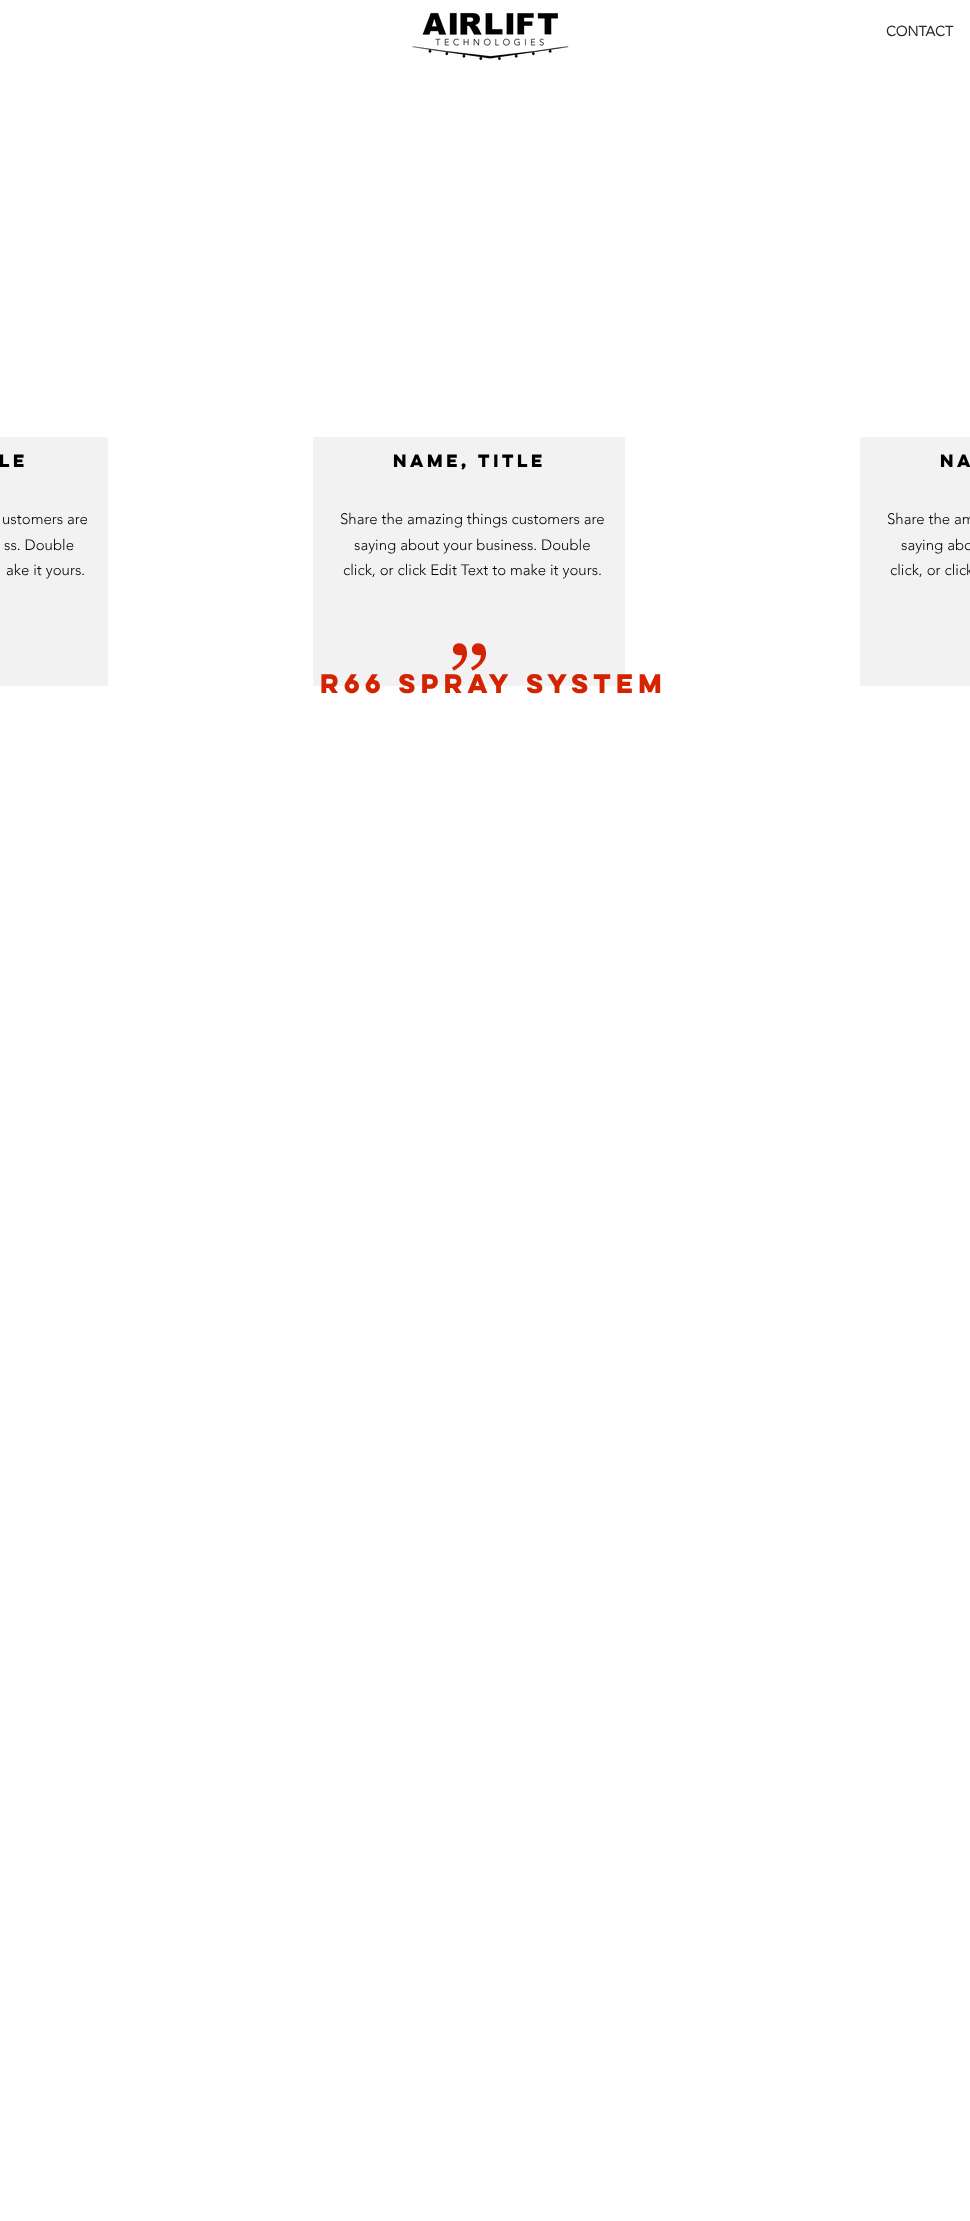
async function draw(canvas) {
	canvas.width = 970;
	canvas.height = 2221;
	const c = canvas.getContext('2d');
	c.miterLimit = 4;
	c.fontKerning = 'normal';
	async function loadImage(src) {
		const img = new Image();
		img.src = src;
		await img.decode();
		return img;
	}

	c.fillStyle = '#fff';
	c.fillRect(0, 0, 970, 2221);
	c.drawImage(await loadImage('img1.png'), 412, 12, 157, 49);
	c.font = 'bold 14px "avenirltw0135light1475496"';
	c.fillStyle = '#2b2b2b';
	c.fillText('CONTACT', 886, 36);
	for (const [x, y, w, h, color] of [
		[0, 437, 108, 249, '#f2f2f2'],
		[313, 437, 312, 249, '#f2f2f2'],
		[860, 437, 110, 249, '#f2f2f2'],
	]) {
		c.fillStyle = color;
		c.fillRect(x, y, w, h);
	}
	c.font = 'bold 16px "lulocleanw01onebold"';
	c.fillStyle = '#000';
	for (const [text, x, y] of [
		['le', -1, 467],
		['Name, Title', 393, 467],
		['Na', 940, 467],
	]) {
		c.fillText(text, x, y);
	}
	c.font = '300 15px "avenirltw0135light1475496"';
	for (const [text, x, y] of [
		['ustomers are', 2, 524],
		['ss. Double', 4, 550],
		['ake it yours.', 6, 575],
		['Share the amazing things customers are', 340, 524],
		['saying about your business. Double', 354, 550],
		['click, or click Edit Text to make it yours.', 343, 575],
		['Share the am', 887, 524],
		['saying abo', 901, 550],
		['click, or click', 890, 575],
	]) {
		c.fillText(text, x, y);
	}
	c.drawImage(await loadImage('img2.png'), 452, 643, 34, 28);
	c.font = 'bold 24px "lulocleanw01onebold"';
	c.fillStyle = '#d32300';
	c.fillText('R66 Spray SYSTEM', 320, 693);
}

draw(document.querySelector('canvas'));
